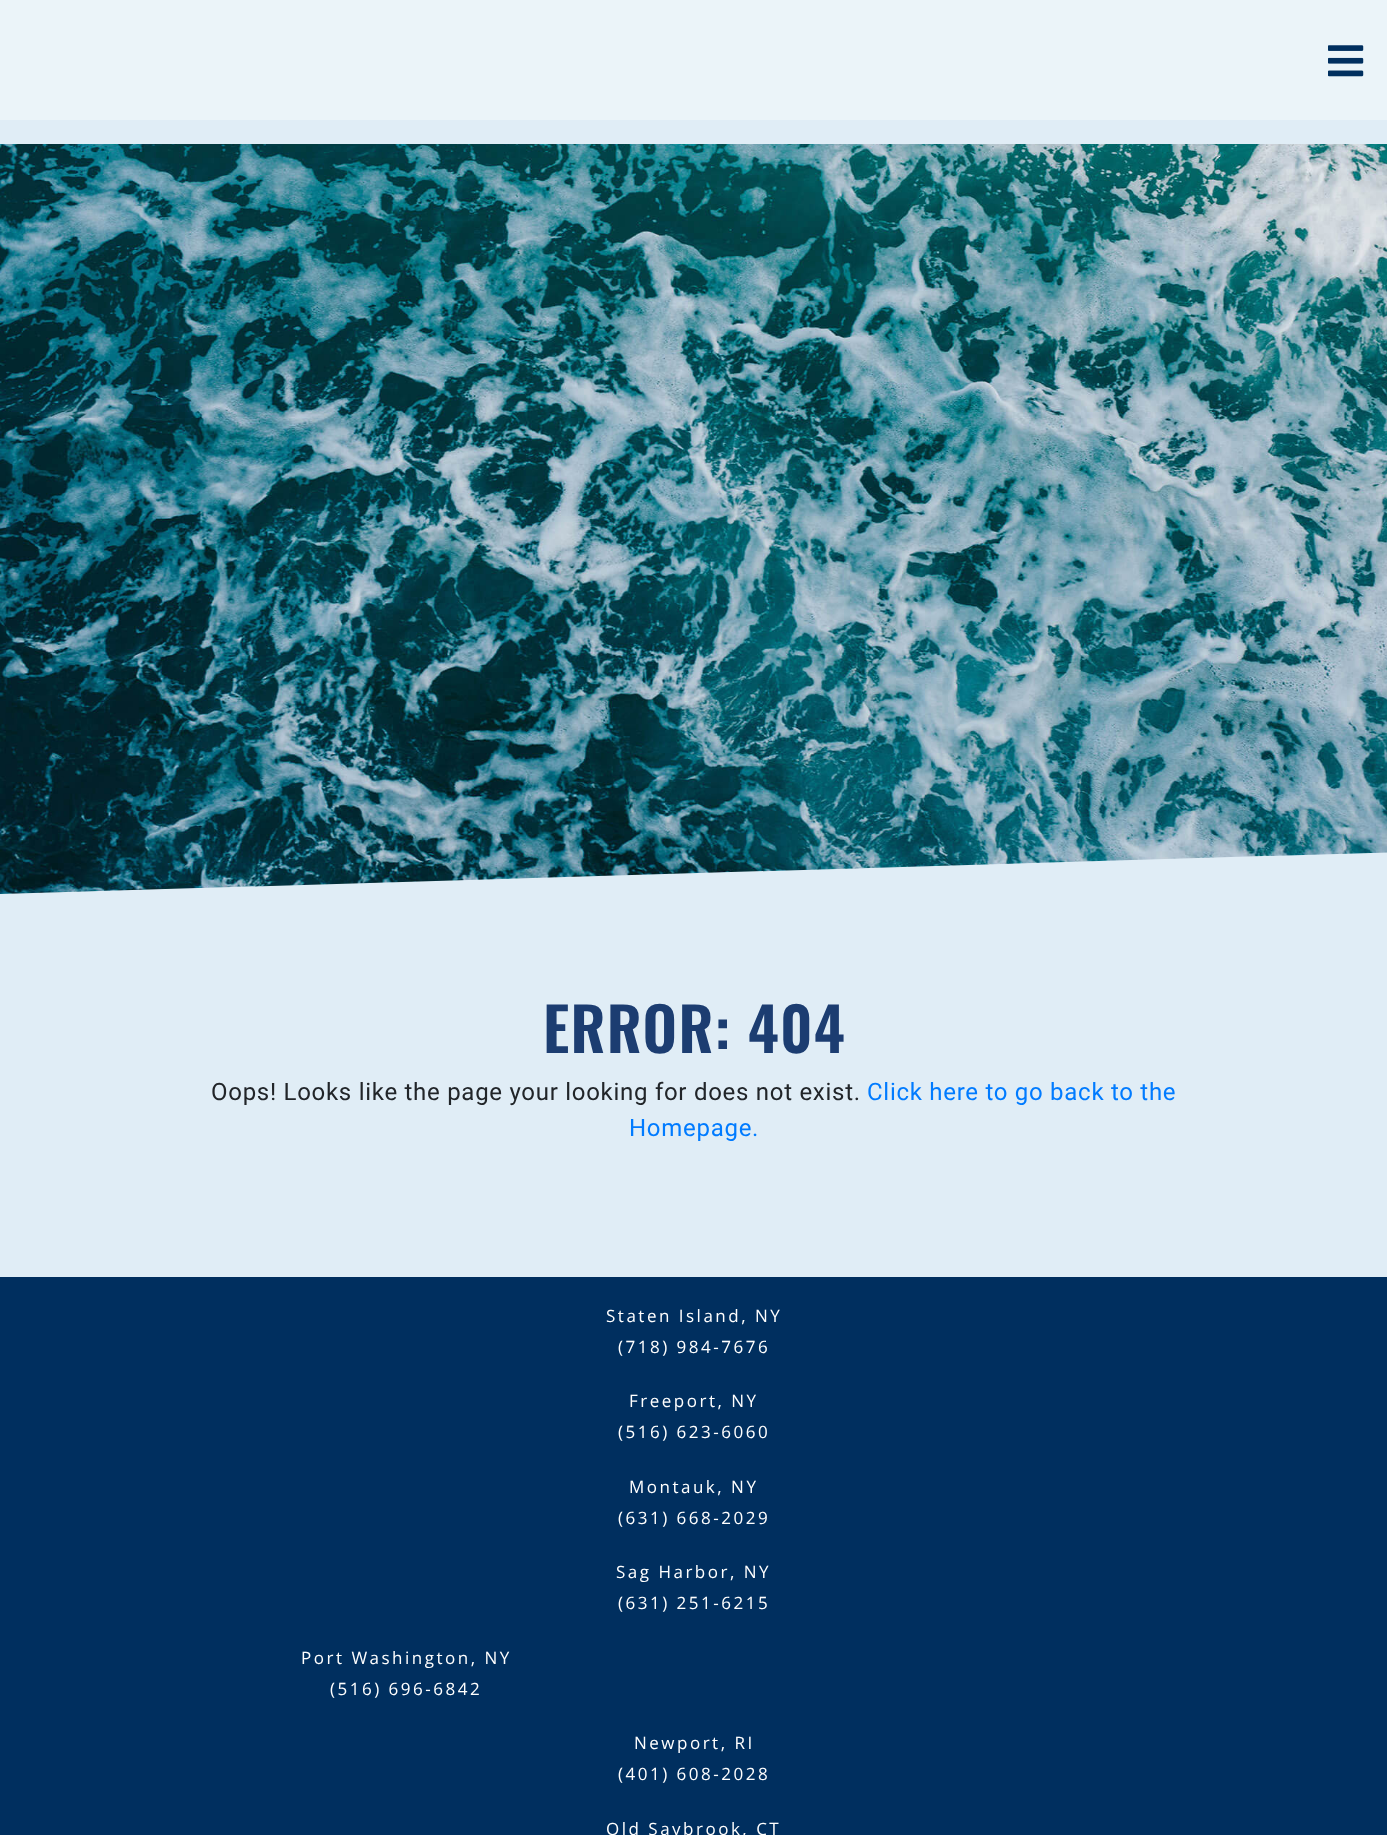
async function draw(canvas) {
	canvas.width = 1387;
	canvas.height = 1835;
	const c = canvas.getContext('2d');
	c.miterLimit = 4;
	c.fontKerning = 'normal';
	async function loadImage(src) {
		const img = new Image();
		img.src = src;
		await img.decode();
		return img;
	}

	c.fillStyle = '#e0edf6';
	c.fillRect(0, 0, 1387, 1835);
	c.fillStyle = '#ebf4f9';
	c.fillRect(0, 0, 1387, 120);
	c.drawImage(await loadImage('img1.png'), 1328, 45, 36, 32);
	c.drawImage(await loadImage('img2.png'), 0, 144, 1387, 750);
	c.letterSpacing = '1.25px';
	c.font = '600 60px Oswald';
	c.fillStyle = '#1c3d71';
	c.fillText('ERROR: 404', 543, 1053);
	c.letterSpacing = '0.72px';
	c.font = '24px Roboto';
	c.fillStyle = '#212529';
	c.fillText('Oops! Looks like the page your looking for does not exist.', 211, 1100);
	c.fillStyle = '#007bff';
	c.fillText('Click here to go back to the', 867, 1100);
	c.fillText('Homepage.', 629, 1136);
	c.fillStyle = '#002f5f';
	c.fillRect(0, 1277, 1387, 558);
	c.letterSpacing = '2.5px';
	c.font = '17px Open Sans';
	c.fillStyle = '#fff';
	for (const [text, x, y] of [
		['Staten Island, NY', 606, 1322],
		['(718) 984-7676', 618, 1353],
		['Freeport, NY', 629, 1407],
		['(516) 623-6060', 618, 1438],
		['Montauk, NY', 629, 1493],
		['(631) 668-2029', 618, 1524],
		['Sag Harbor, NY', 616, 1578],
		['(631) 251-6215', 618, 1609],
		['Port Washington, NY', 301, 1664],
		['(516) 696-6842', 330, 1695],
		['Newport, RI', 634, 1749],
		['(401) 608-2028', 618, 1780],
		['Old Saybrook, CT', 606, 1835],
	]) {
		c.fillText(text, x, y);
	}
}

draw(document.querySelector('canvas'));
